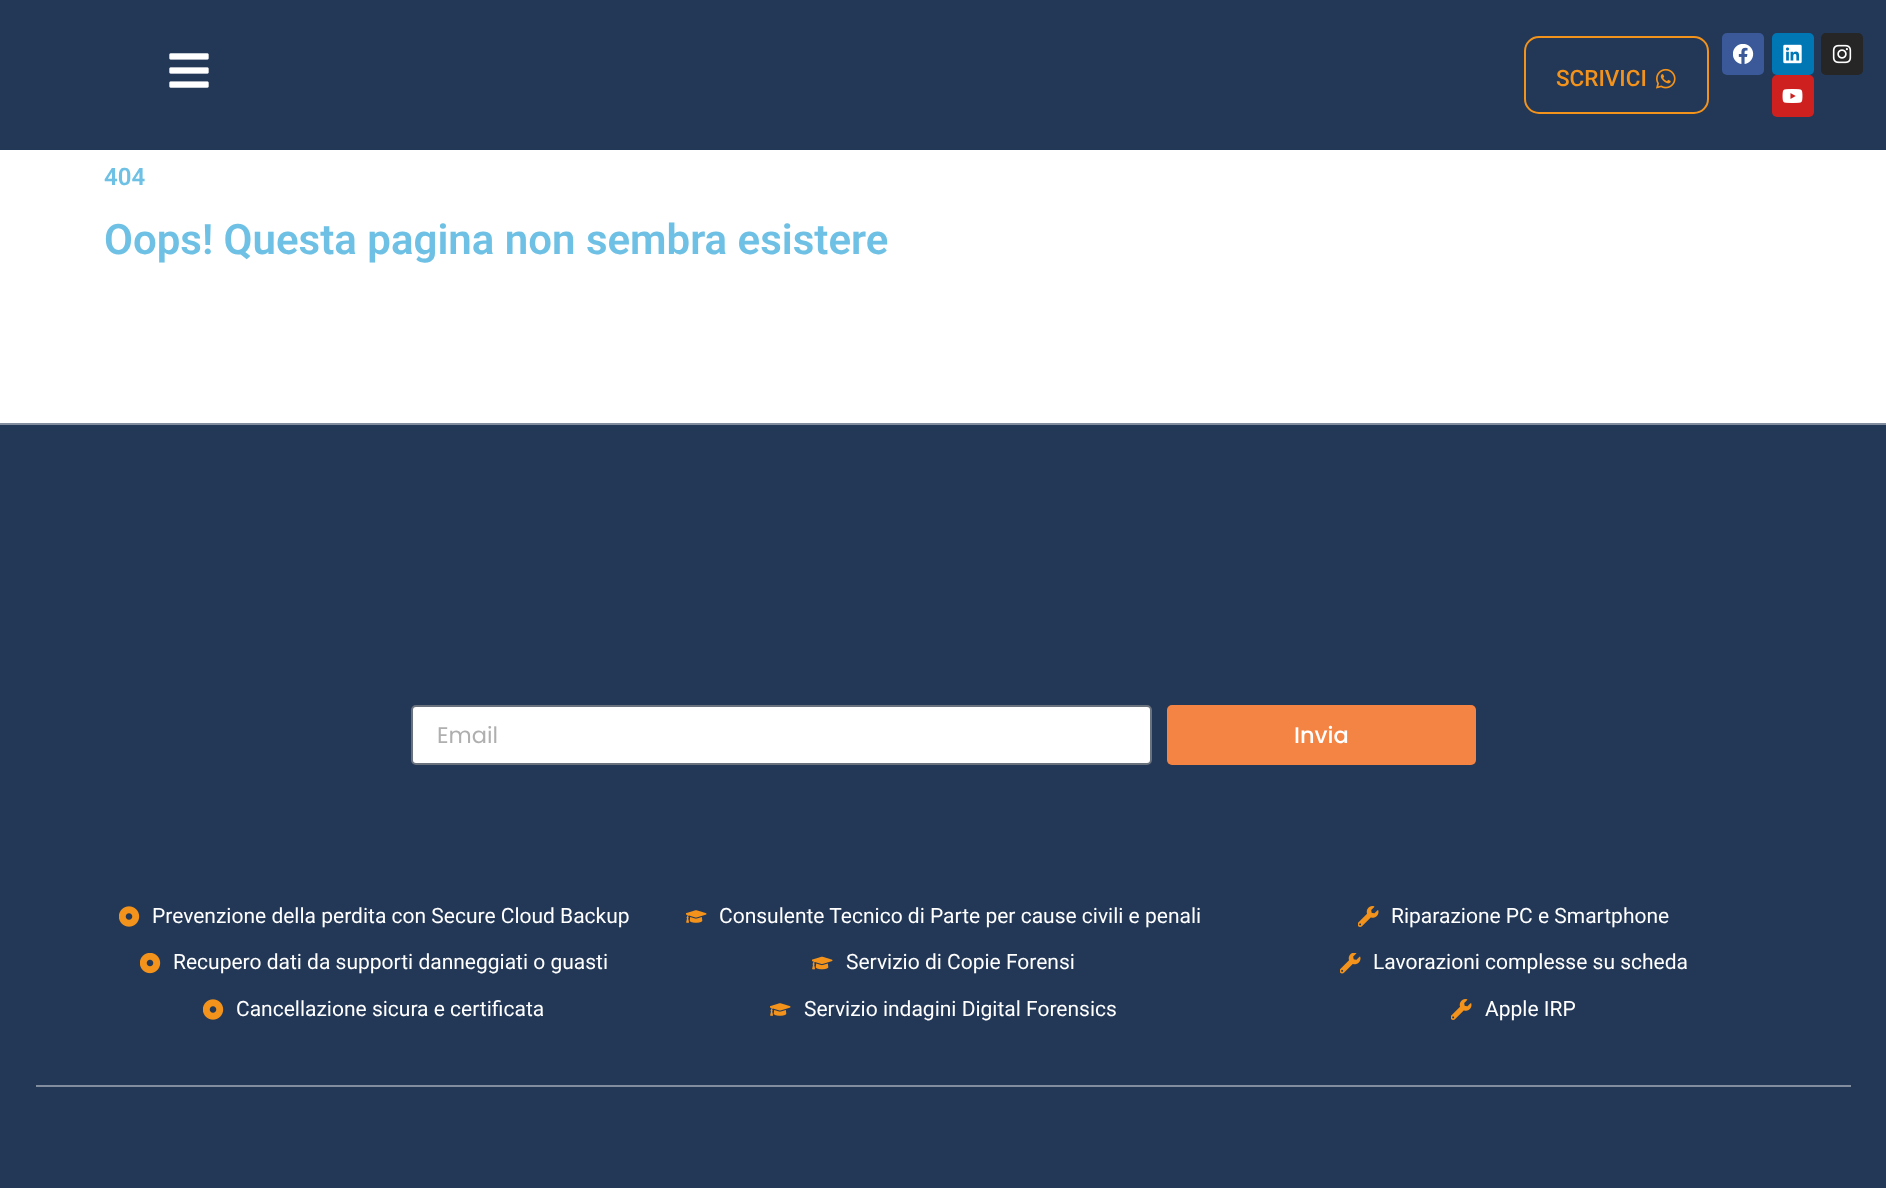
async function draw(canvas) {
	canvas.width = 1886;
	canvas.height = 1188;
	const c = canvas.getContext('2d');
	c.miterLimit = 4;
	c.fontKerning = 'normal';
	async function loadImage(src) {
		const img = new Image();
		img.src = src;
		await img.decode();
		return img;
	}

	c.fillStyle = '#fff';
	c.fillRect(0, 0, 1886, 1188);
	c.fillStyle = '#233857';
	c.fillRect(0, 0, 1886, 150);
	c.drawImage(await loadImage('img1.png'), 169, 53, 40, 35);
	c.beginPath();
	c.roundRect(1525, 37, 183, 76, 14);
	c.strokeStyle = '#f3931b';
	c.lineWidth = 2;
	c.stroke();
	c.font = '500 22.5px Roboto';
	c.fillStyle = '#f3931b';
	c.fillText('SCRIVICI', 1556, 86);
	c.drawImage(await loadImage('img2.png'), 1656, 68, 20, 21);
	c.fillStyle = '#3b5998';
	c.beginPath();
	c.roundRect(1722, 33, 42, 42, 5);
	c.fill();
	c.drawImage(await loadImage('img3.png'), 1733, 44, 21, 20);
	c.fillStyle = '#0077b5';
	c.beginPath();
	c.roundRect(1772, 33, 42, 42, 5);
	c.fill();
	c.drawImage(await loadImage('img4.png'), 1783, 44, 19, 20);
	c.fillStyle = '#262626';
	c.beginPath();
	c.roundRect(1821, 33, 42, 42, 5);
	c.fill();
	c.drawImage(await loadImage('img5.png'), 1832, 44, 20, 20);
	c.fillStyle = '#cd201f';
	c.beginPath();
	c.roundRect(1772, 75, 42, 42, 5);
	c.fill();
	c.drawImage(await loadImage('img6.png'), 1782, 89, 21, 14);
	c.font = '600 24px Roboto';
	c.fillStyle = '#6ec1e4';
	c.fillText('404', 104, 185);
	c.font = '600 42px Roboto';
	c.fillText('Oops! Questa pagina non sembra esistere', 104, 254);
	c.fillStyle = '#233857';
	c.fillRect(0, 425, 1886, 763);
	c.fillStyle = '#828e9f';
	c.fillRect(0, 423, 1886, 2);
	c.fillStyle = '#fff';
	c.beginPath();
	c.roundRect(412, 706, 739, 58, 4);
	c.fill();
	c.strokeStyle = '#69727d';
	c.stroke();
	c.font = '22.5px Poppins';
	c.fillStyle = '#afafaf';
	c.fillText('Email', 437, 743);
	c.fillStyle = '#f48444';
	c.beginPath();
	c.roundRect(1167, 705, 309, 60, 5);
	c.fill();
	c.font = '500 22.5px Poppins';
	c.fillStyle = '#fff';
	c.fillText('Invia', 1294, 743);
	c.drawImage(await loadImage('img7.png'), 119, 906, 21, 21);
	c.font = '21px Roboto';
	c.fillText('Prevenzione della perdita con Secure Cloud Backup', 152, 923);
	c.drawImage(await loadImage('img8.png'), 140, 953, 21, 21);
	c.fillText('Recupero dati da supporti danneggiati o guasti', 173, 969);
	c.drawImage(await loadImage('img7.png'), 203, 999, 21, 21);
	c.fillText('Cancellazione sicura e certificata', 236, 1016);
	c.drawImage(await loadImage('img9.png'), 686, 910, 21, 13);
	c.fillText('Consulente Tecnico di Parte per cause civili e penali', 719, 923);
	c.drawImage(await loadImage('img10.png'), 812, 956, 21, 14);
	c.fillText('Servizio di Copie Forensi', 846, 969);
	c.drawImage(await loadImage('img9.png'), 770, 1003, 21, 13);
	c.fillText('Servizio indagini Digital Forensics', 804, 1016);
	c.drawImage(await loadImage('img11.png'), 1358, 906, 21, 21);
	c.fillText('Riparazione PC e Smartphone', 1391, 923);
	c.drawImage(await loadImage('img12.png'), 1340, 953, 21, 21);
	c.fillText('Lavorazioni complesse su scheda', 1373, 969);
	c.drawImage(await loadImage('img11.png'), 1451, 999, 21, 21);
	c.fillText('Apple IRP', 1485, 1016);
	c.fillStyle = '#828e9f';
	c.fillRect(36, 1085, 1815, 2);
}

draw(document.querySelector('canvas'));
